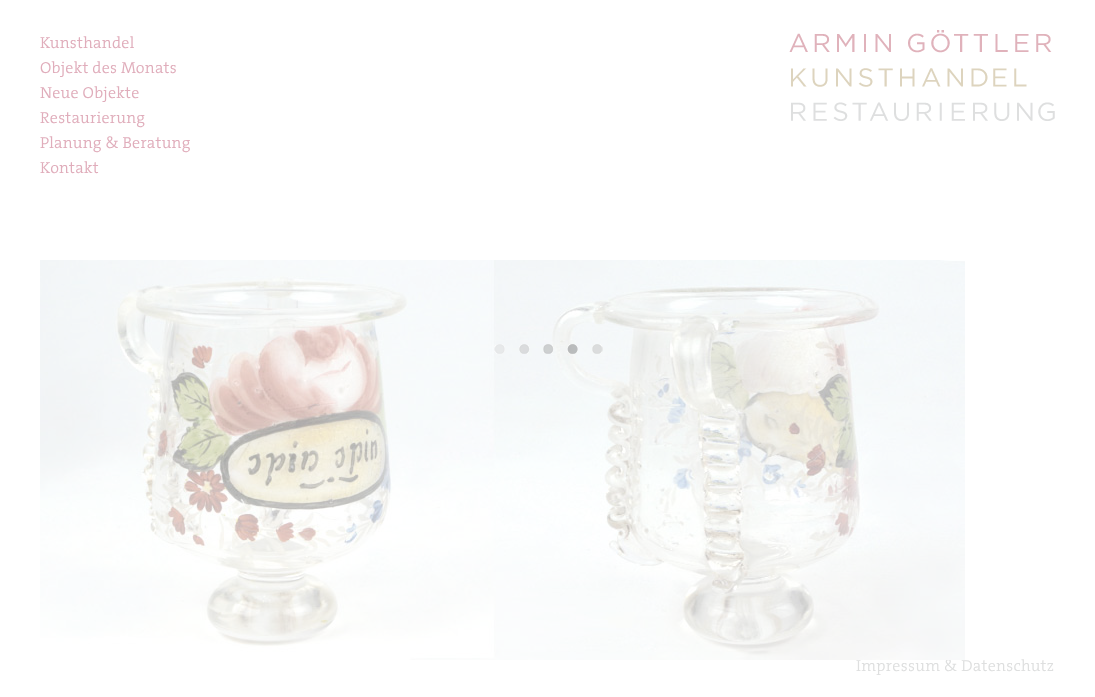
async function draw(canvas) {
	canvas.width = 1095;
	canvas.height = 697;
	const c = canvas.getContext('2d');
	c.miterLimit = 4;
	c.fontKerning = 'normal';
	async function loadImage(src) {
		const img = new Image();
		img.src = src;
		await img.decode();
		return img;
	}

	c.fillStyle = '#fff';
	c.fillRect(0, 0, 1095, 697);
	c.letterSpacing = '0.25px';
	c.font = '300 16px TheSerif';
	c.fillStyle = '#e0adbb';
	for (const [text, x, y] of [
		['Kunsthandel', 40, 48],
		['Objekt des Monats', 40, 73],
		['Neue Objekte', 40, 98],
		['Restaurierung', 40, 123],
		['Planung & Beratung', 40, 148],
		['Kontakt', 40, 173],
	]) {
		c.fillText(text, x, y);
	}
	c.drawImage(await loadImage('img1.png'), 789, 30, 266, 91);
	c.letterSpacing = '0.3px';
	c.fillStyle = '#dedfdf';
	c.fillText('Impressum & Datenschutz', 856, 671);
	c.drawImage(await loadImage('img2.png'), 40, 260, 925, 400);
	c.drawImage(await loadImage('img3.png'), 494, 344, 109, 10);
}

draw(document.querySelector('canvas'));
